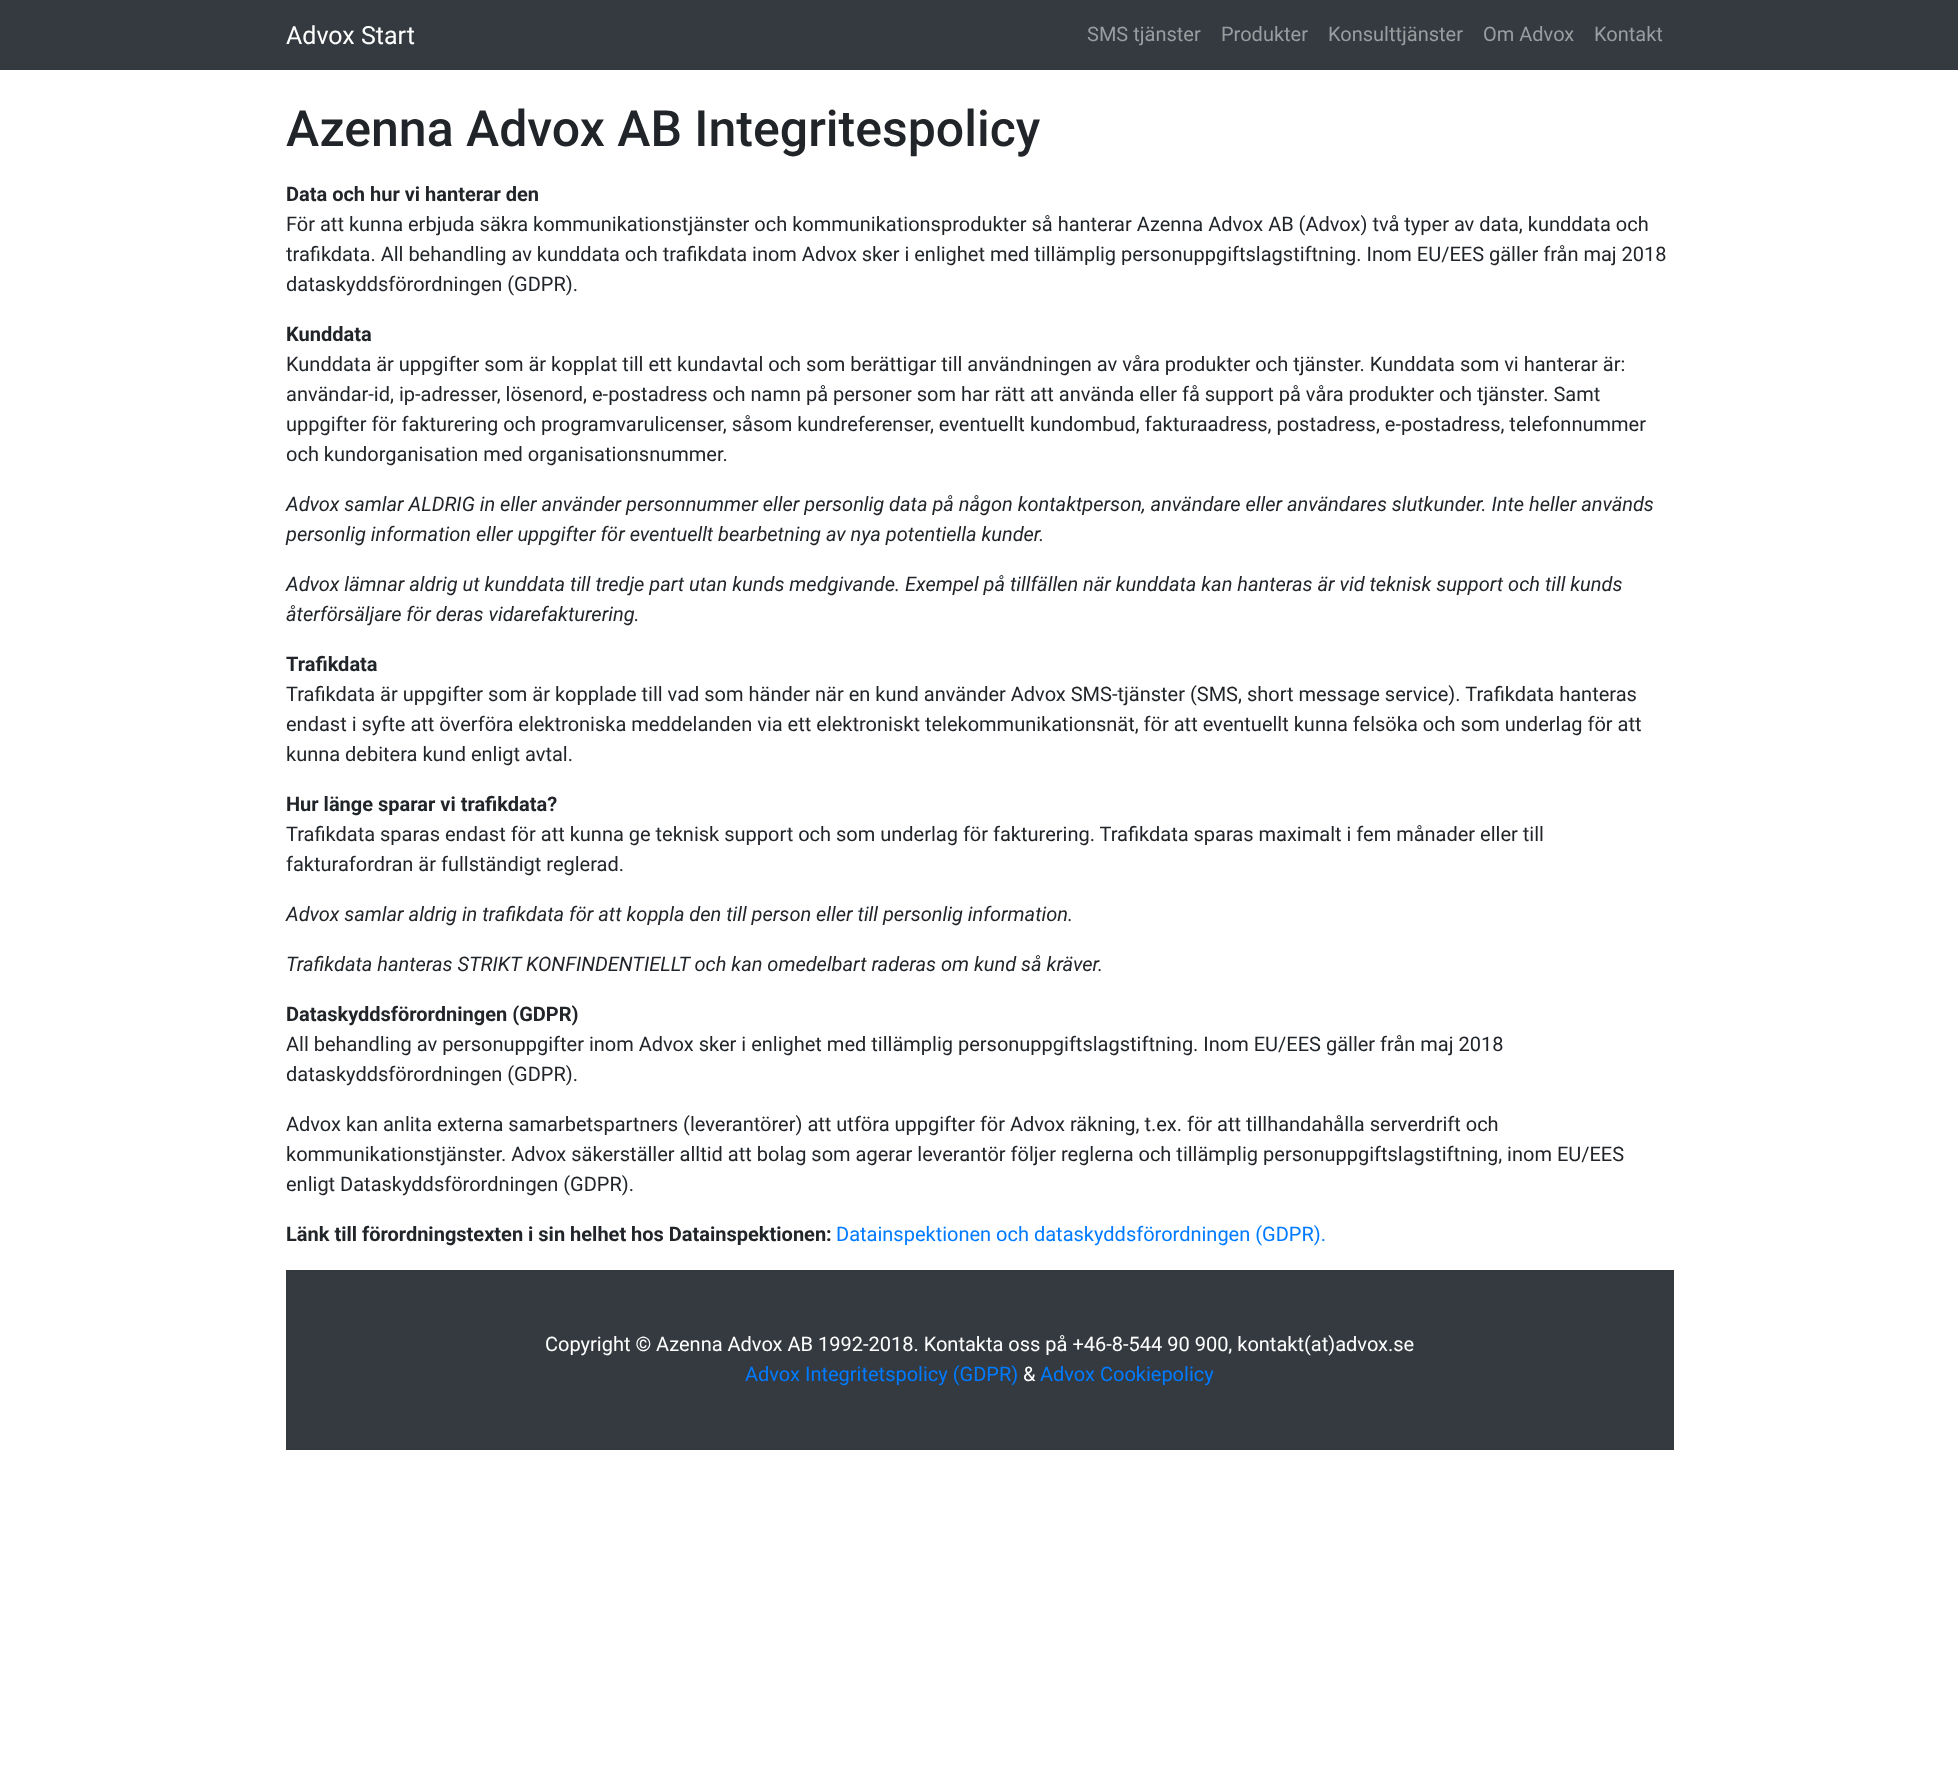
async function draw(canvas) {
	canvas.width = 1958;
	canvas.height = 1785;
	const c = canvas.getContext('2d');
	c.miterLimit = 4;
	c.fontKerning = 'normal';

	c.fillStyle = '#fff';
	c.fillRect(0, 0, 1958, 1785);
	c.fillStyle = '#343a40';
	c.fillRect(0, 0, 1958, 70);
	c.font = '25px Roboto';
	c.fillStyle = '#fff';
	c.fillText('Advox Start', 286, 44);
	c.font = '20px Roboto';
	c.fillStyle = '#9a9da0';
	for (const [text, x, y] of [
		['SMS tjänster', 1087, 41],
		['Produkter', 1221, 41],
		['Konsulttjänster', 1328, 41],
		['Om Advox', 1483, 41],
		['Kontakt', 1594, 41],
	]) {
		c.fillText(text, x, y);
	}
	c.font = '500 50px Roboto';
	c.fillStyle = '#212529';
	c.fillText('Azenna Advox AB Integritespolicy', 286, 146);
	c.font = 'bold 20px Roboto';
	c.fillText('Data och hur vi hanterar den', 286, 201);
	c.font = '20px Roboto';
	for (const [text, x, y] of [
		['För att kunna erbjuda säkra kommunikationstjänster och kommunikationsprodukter så hanterar Azenna Advox AB (Advox) två typer av data, kunddata och', 286, 231],
		['trafikdata. All behandling av kunddata och trafikdata inom Advox sker i enlighet med tillämplig personuppgiftslagstiftning. Inom EU/EES gäller från maj 2018', 286, 261],
		['dataskyddsförordningen (GDPR).', 286, 291],
	]) {
		c.fillText(text, x, y);
	}
	c.font = 'bold 20px Roboto';
	c.fillText('Kunddata', 286, 341);
	c.font = '20px Roboto';
	for (const [text, x, y] of [
		['Kunddata är uppgifter som är kopplat till ett kundavtal och som berättigar till användningen av våra produkter och tjänster. Kunddata som vi hanterar är:', 286, 371],
		['användar-id, ip-adresser, lösenord, e-postadress och namn på personer som har rätt att använda eller få support på våra produkter och tjänster. Samt', 286, 401],
		['uppgifter för fakturering och programvarulicenser, såsom kundreferenser, eventuellt kundombud, fakturaadress, postadress, e-postadress, telefonnummer', 286, 431],
		['och kundorganisation med organisationsnummer.', 286, 461],
	]) {
		c.fillText(text, x, y);
	}
	c.font = 'italic 20px Roboto';
	for (const [text, x, y] of [
		['Advox samlar ALDRIG in eller använder personnummer eller personlig data på någon kontaktperson, användare eller användares slutkunder. Inte heller används', 286, 511],
		['personlig information eller uppgifter för eventuellt bearbetning av nya potentiella kunder.', 286, 541],
		['Advox lämnar aldrig ut kunddata till tredje part utan kunds medgivande. Exempel på tillfällen när kunddata kan hanteras är vid teknisk support och till kunds', 286, 591],
		['återförsäljare för deras vidarefakturering.', 286, 621],
	]) {
		c.fillText(text, x, y);
	}
	c.font = 'bold 20px Roboto';
	c.fillText('Trafikdata', 286, 671);
	c.font = '20px Roboto';
	for (const [text, x, y] of [
		['Trafikdata är uppgifter som är kopplade till vad som händer när en kund använder Advox SMS-tjänster (SMS, short message service). Trafikdata hanteras', 286, 701],
		['endast i syfte att överföra elektroniska meddelanden via ett elektroniskt telekommunikationsnät, för att eventuellt kunna felsöka och som underlag för att', 286, 731],
		['kunna debitera kund enligt avtal.', 286, 761],
	]) {
		c.fillText(text, x, y);
	}
	c.font = 'bold 20px Roboto';
	c.fillText('Hur länge sparar vi trafikdata?', 286, 811);
	c.font = '20px Roboto';
	c.fillText('Trafikdata sparas endast för att kunna ge teknisk support och som underlag för fakturering. Trafikdata sparas maximalt i fem månader eller till', 286, 841);
	c.fillText('fakturafordran är fullständigt reglerad.', 286, 871);
	c.font = 'italic 20px Roboto';
	c.fillText('Advox samlar aldrig in trafikdata för att koppla den till person eller till personlig information.', 286, 921);
	c.fillText('Trafikdata hanteras STRIKT KONFINDENTIELLT och kan omedelbart raderas om kund så kräver.', 286, 971);
	c.font = 'bold 20px Roboto';
	c.fillText('Dataskyddsförordningen (GDPR)', 286, 1021);
	c.font = '20px Roboto';
	for (const [text, x, y] of [
		['All behandling av personuppgifter inom Advox sker i enlighet med tillämplig personuppgiftslagstiftning. Inom EU/EES gäller från maj 2018', 286, 1051],
		['dataskyddsförordningen (GDPR).', 286, 1081],
		['Advox kan anlita externa samarbetspartners (leverantörer) att utföra uppgifter för Advox räkning, t.ex. för att tillhandahålla serverdrift och', 286, 1131],
		['kommunikationstjänster. Advox säkerställer alltid att bolag som agerar leverantör följer reglerna och tillämplig personuppgiftslagstiftning, inom EU/EES', 286, 1161],
		['enligt Dataskyddsförordningen (GDPR).', 286, 1191],
	]) {
		c.fillText(text, x, y);
	}
	c.font = 'bold 20px Roboto';
	c.fillText('Länk till förordningstexten i sin helhet hos Datainspektionen:', 286, 1241);
	c.font = '20px Roboto';
	c.fillStyle = '#007bff';
	c.fillText('Datainspektionen och dataskyddsförordningen (GDPR).', 836, 1241);
	c.fillStyle = '#343a40';
	c.fillRect(286, 1270, 1388, 180);
	c.fillStyle = '#fff';
	c.fillText('Copyright © Azenna Advox AB 1992-2018. Kontakta oss på +46-8-544 90 900, kontakt(at)advox.se', 545, 1351);
	c.fillStyle = '#007bff';
	c.fillText('Advox Integritetspolicy (GDPR)', 745, 1381);
	c.fillStyle = '#fff';
	c.fillText('&', 1023, 1381);
	c.fillStyle = '#007bff';
	c.fillText('Advox Cookiepolicy', 1040, 1381);
}

draw(document.querySelector('canvas'));
